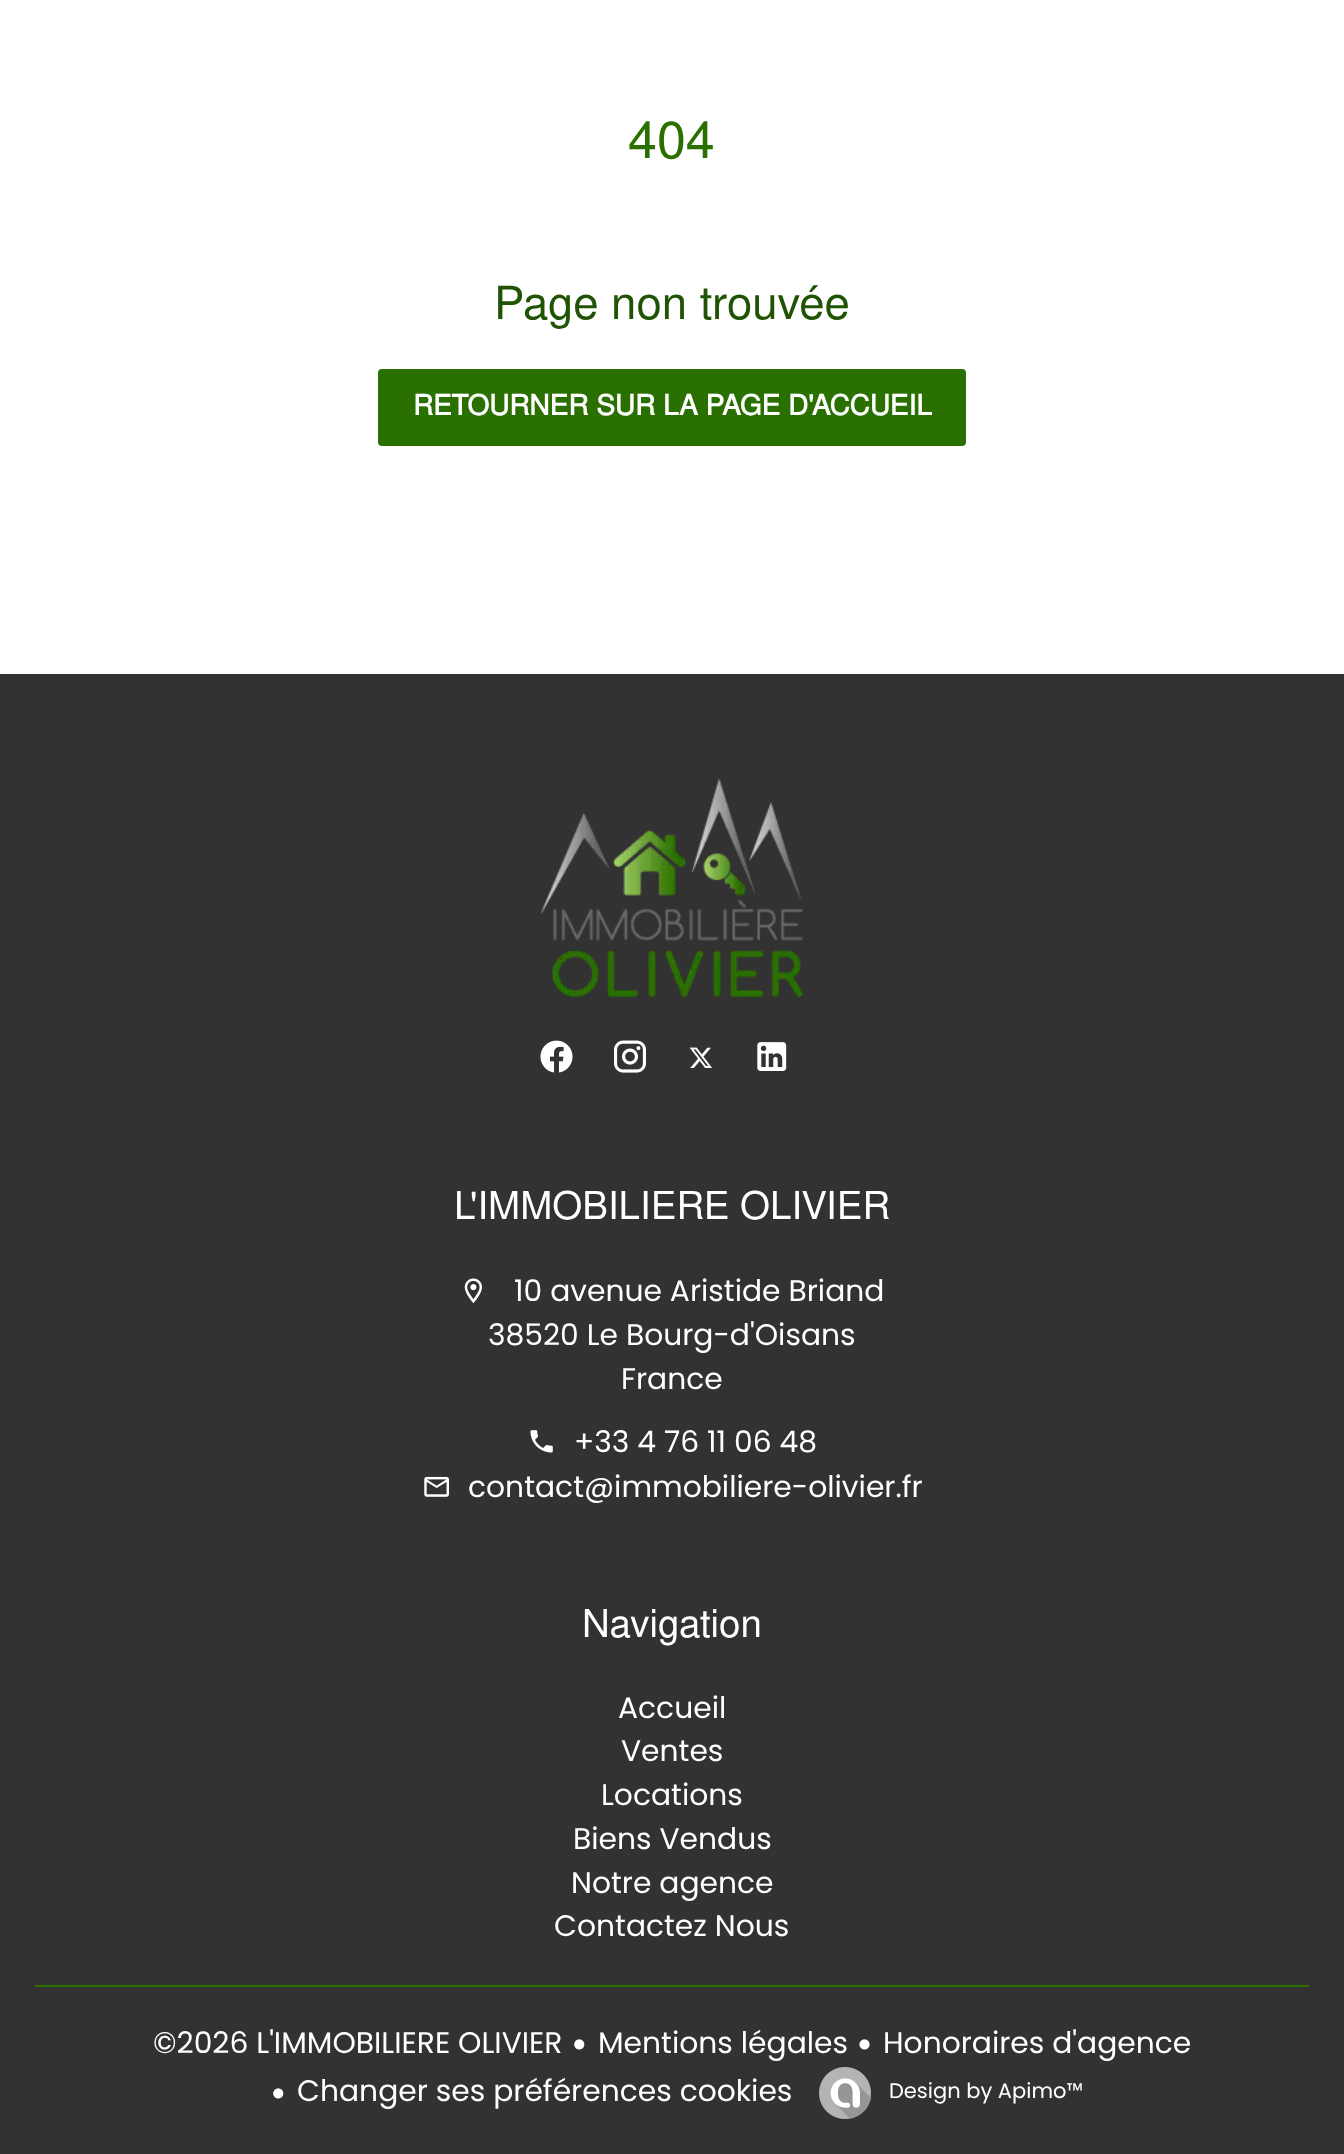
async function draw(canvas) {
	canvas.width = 1344;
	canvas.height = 2154;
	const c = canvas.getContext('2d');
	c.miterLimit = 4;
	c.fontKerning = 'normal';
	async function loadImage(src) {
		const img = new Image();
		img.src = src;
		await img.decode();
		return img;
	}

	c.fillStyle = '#fff';
	c.fillRect(0, 0, 1344, 2154);
	c.font = '52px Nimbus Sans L';
	c.fillStyle = '#297000';
	c.fillText('404', 628, 158);
	c.font = '45.5px Nimbus Sans L';
	c.fillStyle = '#215305';
	c.fillText('Page non trouvée', 494, 319);
	c.fillStyle = '#297000';
	c.beginPath();
	c.roundRect(378, 369, 588, 77, 4);
	c.fill();
	c.font = 'bold 28px Nimbus Sans L';
	c.fillStyle = '#fff';
	c.fillText('RETOURNER SUR LA PAGE D\'ACCUEIL', 413, 415);
	c.fillStyle = '#333232';
	c.fillRect(0, 674, 1344, 1480);
	c.drawImage(await loadImage('img1.png'), 540, 778, 264, 220);
	c.drawImage(await loadImage('img2.png'), 540, 1040, 33, 33);
	c.drawImage(await loadImage('img3.png'), 614, 1040, 32, 33);
	c.drawImage(await loadImage('img4.png'), 689, 1047, 23, 21);
	c.drawImage(await loadImage('img5.png'), 757, 1042, 30, 29);
	c.font = '38.5px Nimbus Sans L';
	c.fillStyle = '#fff';
	c.fillText('L\'IMMOBILIERE OLIVIER', 454, 1219);
	c.drawImage(await loadImage('img6.png'), 464, 1278, 18, 26);
	c.font = '29.75px Poppins';
	for (const [text, x, y] of [
		['10 avenue Aristide Briand', 514, 1301],
		['38520 Le Bourg-d\'Oisans', 488, 1345],
		['France', 621, 1389],
	]) {
		c.fillText(text, x, y);
	}
	c.drawImage(await loadImage('img7.png'), 530, 1430, 23, 23);
	c.fillText('+33 4 76 11 06 48', 574, 1452);
	c.drawImage(await loadImage('img8.png'), 424, 1476, 25, 21);
	c.fillText('contact@immobiliere-olivier.fr', 468, 1497);
	c.font = '38.5px Nimbus Sans L';
	c.fillText('Navigation', 582, 1637);
	c.font = '29.75px Poppins';
	for (const [text, x, y] of [
		['Accueil', 618, 1718],
		['Ventes', 621, 1761],
		['Locations', 601, 1805],
		['Biens Vendus', 573, 1849],
		['Notre agence', 571, 1893],
		['Contactez Nous', 554, 1936],
	]) {
		c.fillText(text, x, y);
	}
	c.fillStyle = '#297000';
	c.fillRect(35, 1985, 1274, 2);
	c.fillStyle = '#fff';
	c.fillText('©2026 L\'IMMOBILIERE OLIVIER', 153, 2053);
	c.drawImage(await loadImage('img9.png'), 574, 2039, 11, 11);
	c.fillText('Mentions légales', 598, 2053);
	c.drawImage(await loadImage('img10.png'), 859, 2039, 11, 11);
	c.fillText('Honoraires d\'agence', 883, 2053);
	c.drawImage(await loadImage('img9.png'), 273, 2088, 11, 11);
	c.fillText('Changer ses préférences cookies', 297, 2101);
	c.drawImage(await loadImage('img11.png'), 819, 2067, 52, 52);
	c.font = '21px Poppins';
	c.fillText('Design by Apimo™', 889, 2098);
}

draw(document.querySelector('canvas'));
